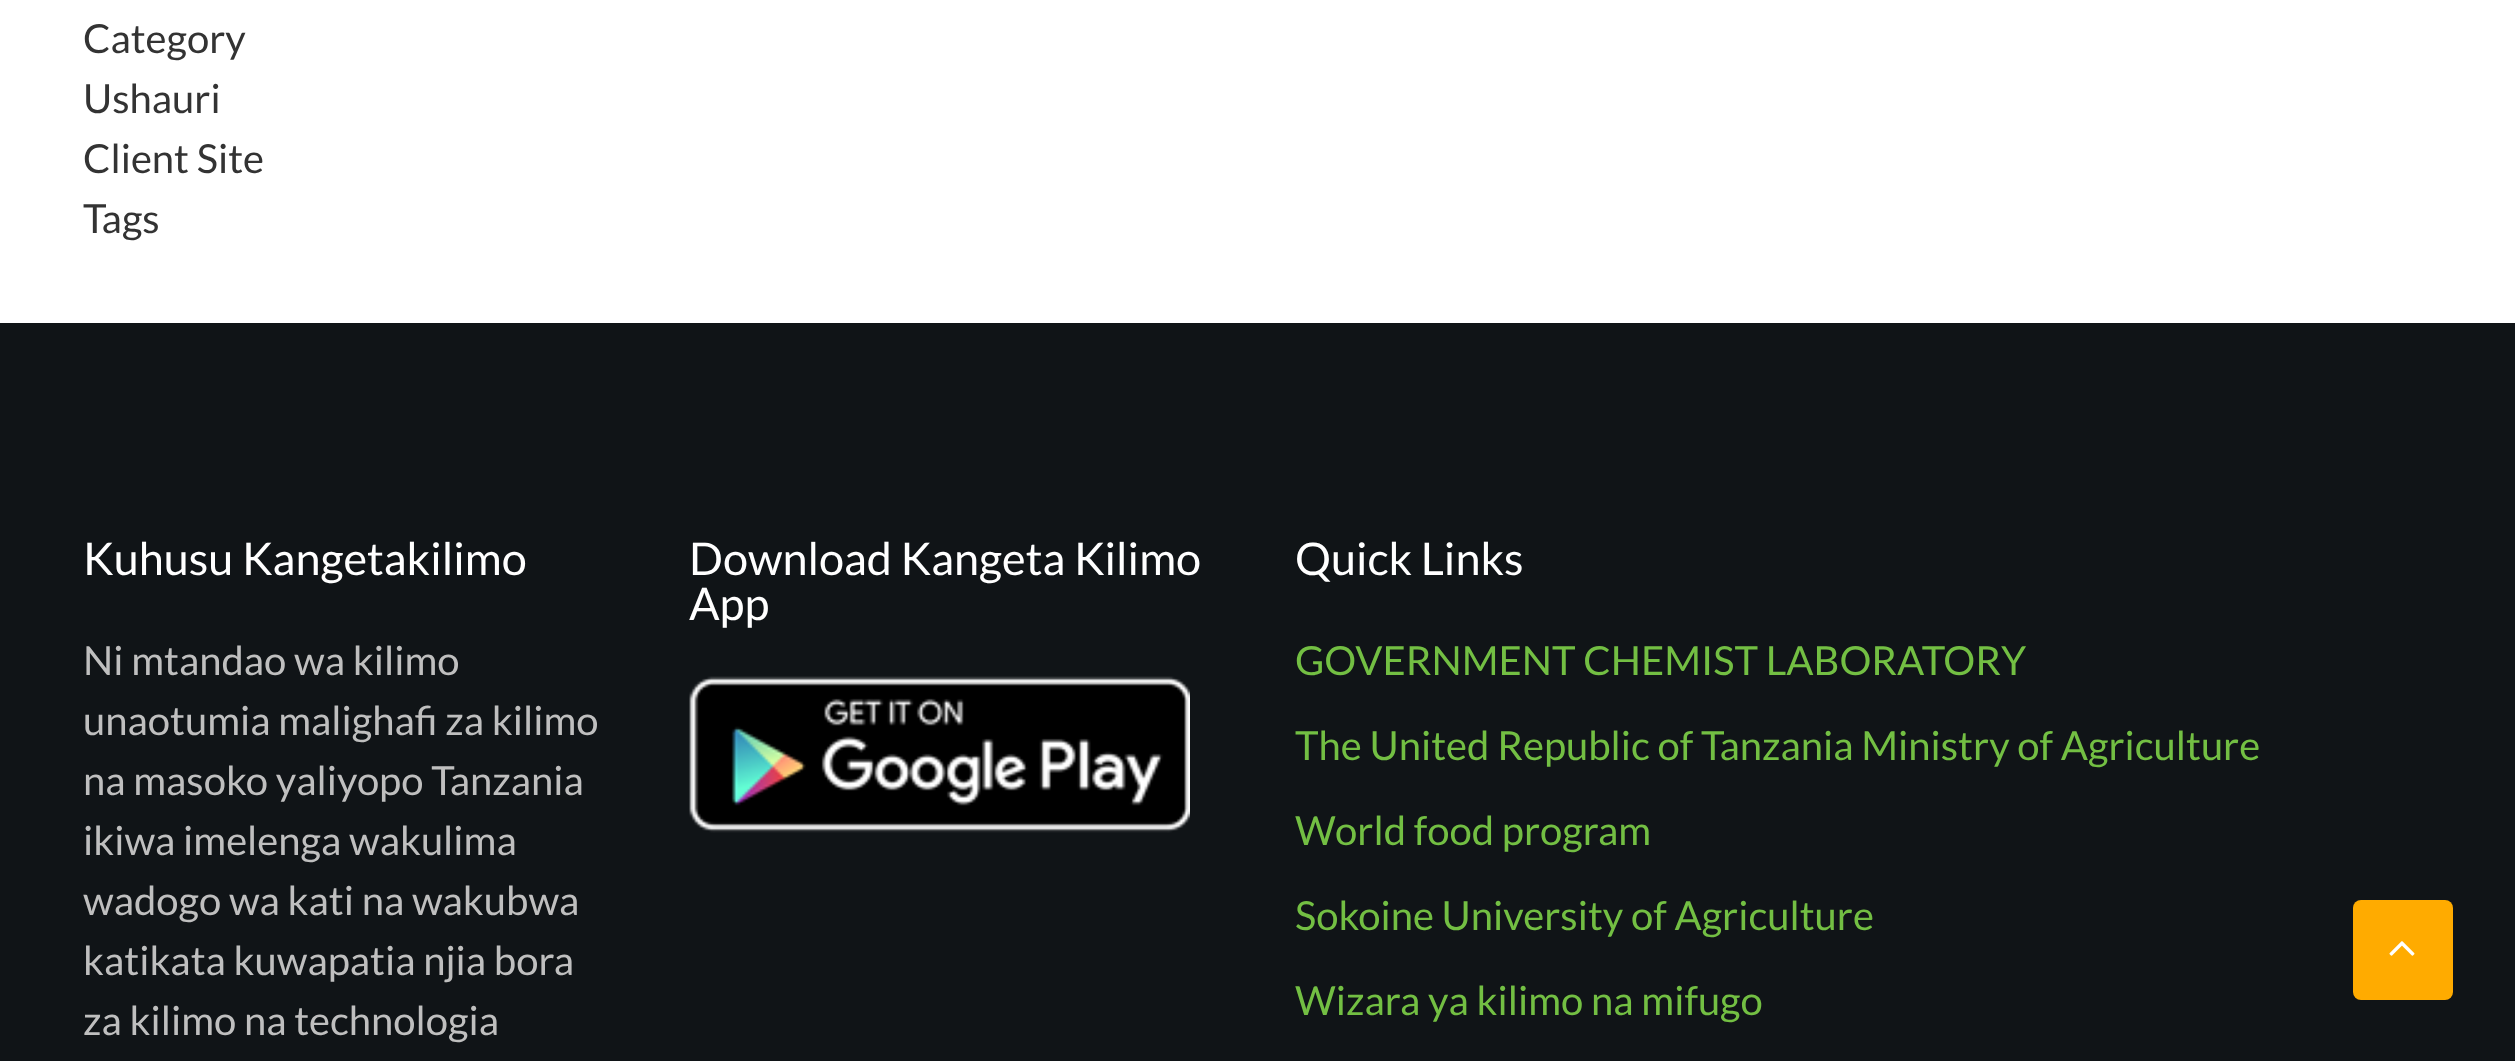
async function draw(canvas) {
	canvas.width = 2515;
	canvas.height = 1061;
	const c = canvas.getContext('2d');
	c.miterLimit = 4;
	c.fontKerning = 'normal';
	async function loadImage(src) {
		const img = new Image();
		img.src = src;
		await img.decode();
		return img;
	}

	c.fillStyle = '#fff';
	c.fillRect(0, 0, 2515, 1061);
	c.font = '40px Lato';
	c.fillStyle = '#333';
	for (const [text, x, y] of [
		['Category', 83, 53],
		['Ushauri', 83, 113],
		['Client Site', 83, 173],
		['Tags', 83, 233],
	]) {
		c.fillText(text, x, y);
	}
	c.fillStyle = '#101417';
	c.fillRect(0, 323, 2515, 738);
	c.font = '45px Lato';
	c.fillStyle = '#fff';
	c.fillText('Kuhusu Kangetakilimo', 83, 575);
	c.font = '40px Lato';
	c.fillStyle = '#bfbfbf';
	for (const [text, x, y] of [
		['Ni mtandao wa kilimo', 83, 675],
		['unaotumia malighafi za kilimo', 83, 735],
		['na masoko yaliyopo Tanzania', 83, 795],
		['ikiwa imelenga wakulima', 83, 855],
		['wadogo wa kati na wakubwa', 83, 915],
		['katikata kuwapatia njia bora', 83, 975],
		['za kilimo na technologia', 83, 1035],
	]) {
		c.fillText(text, x, y);
	}
	c.font = '45px Lato';
	c.fillStyle = '#fff';
	c.fillText('Download Kangeta Kilimo', 689, 575);
	c.fillText('App', 689, 620);
	c.drawImage(await loadImage('img1.png'), 689, 676, 501, 157);
	c.fillText('Quick Links', 1295, 575);
	c.font = '40px Lato';
	c.fillStyle = '#73bf43';
	for (const [text, x, y] of [
		['GOVERNMENT CHEMIST LABORATORY', 1295, 675],
		['The United Republic of Tanzania Ministry of Agriculture', 1295, 760],
		['World food program', 1295, 845],
		['Sokoine University of Agriculture', 1295, 930],
		['Wizara ya kilimo na mifugo', 1295, 1015],
	]) {
		c.fillText(text, x, y);
	}
	c.fillStyle = '#ffab00';
	c.beginPath();
	c.roundRect(2353, 900, 100, 100, 8);
	c.fill();
	c.drawImage(await loadImage('img2.png'), 2389, 941, 26, 15);
}

draw(document.querySelector('canvas'));
